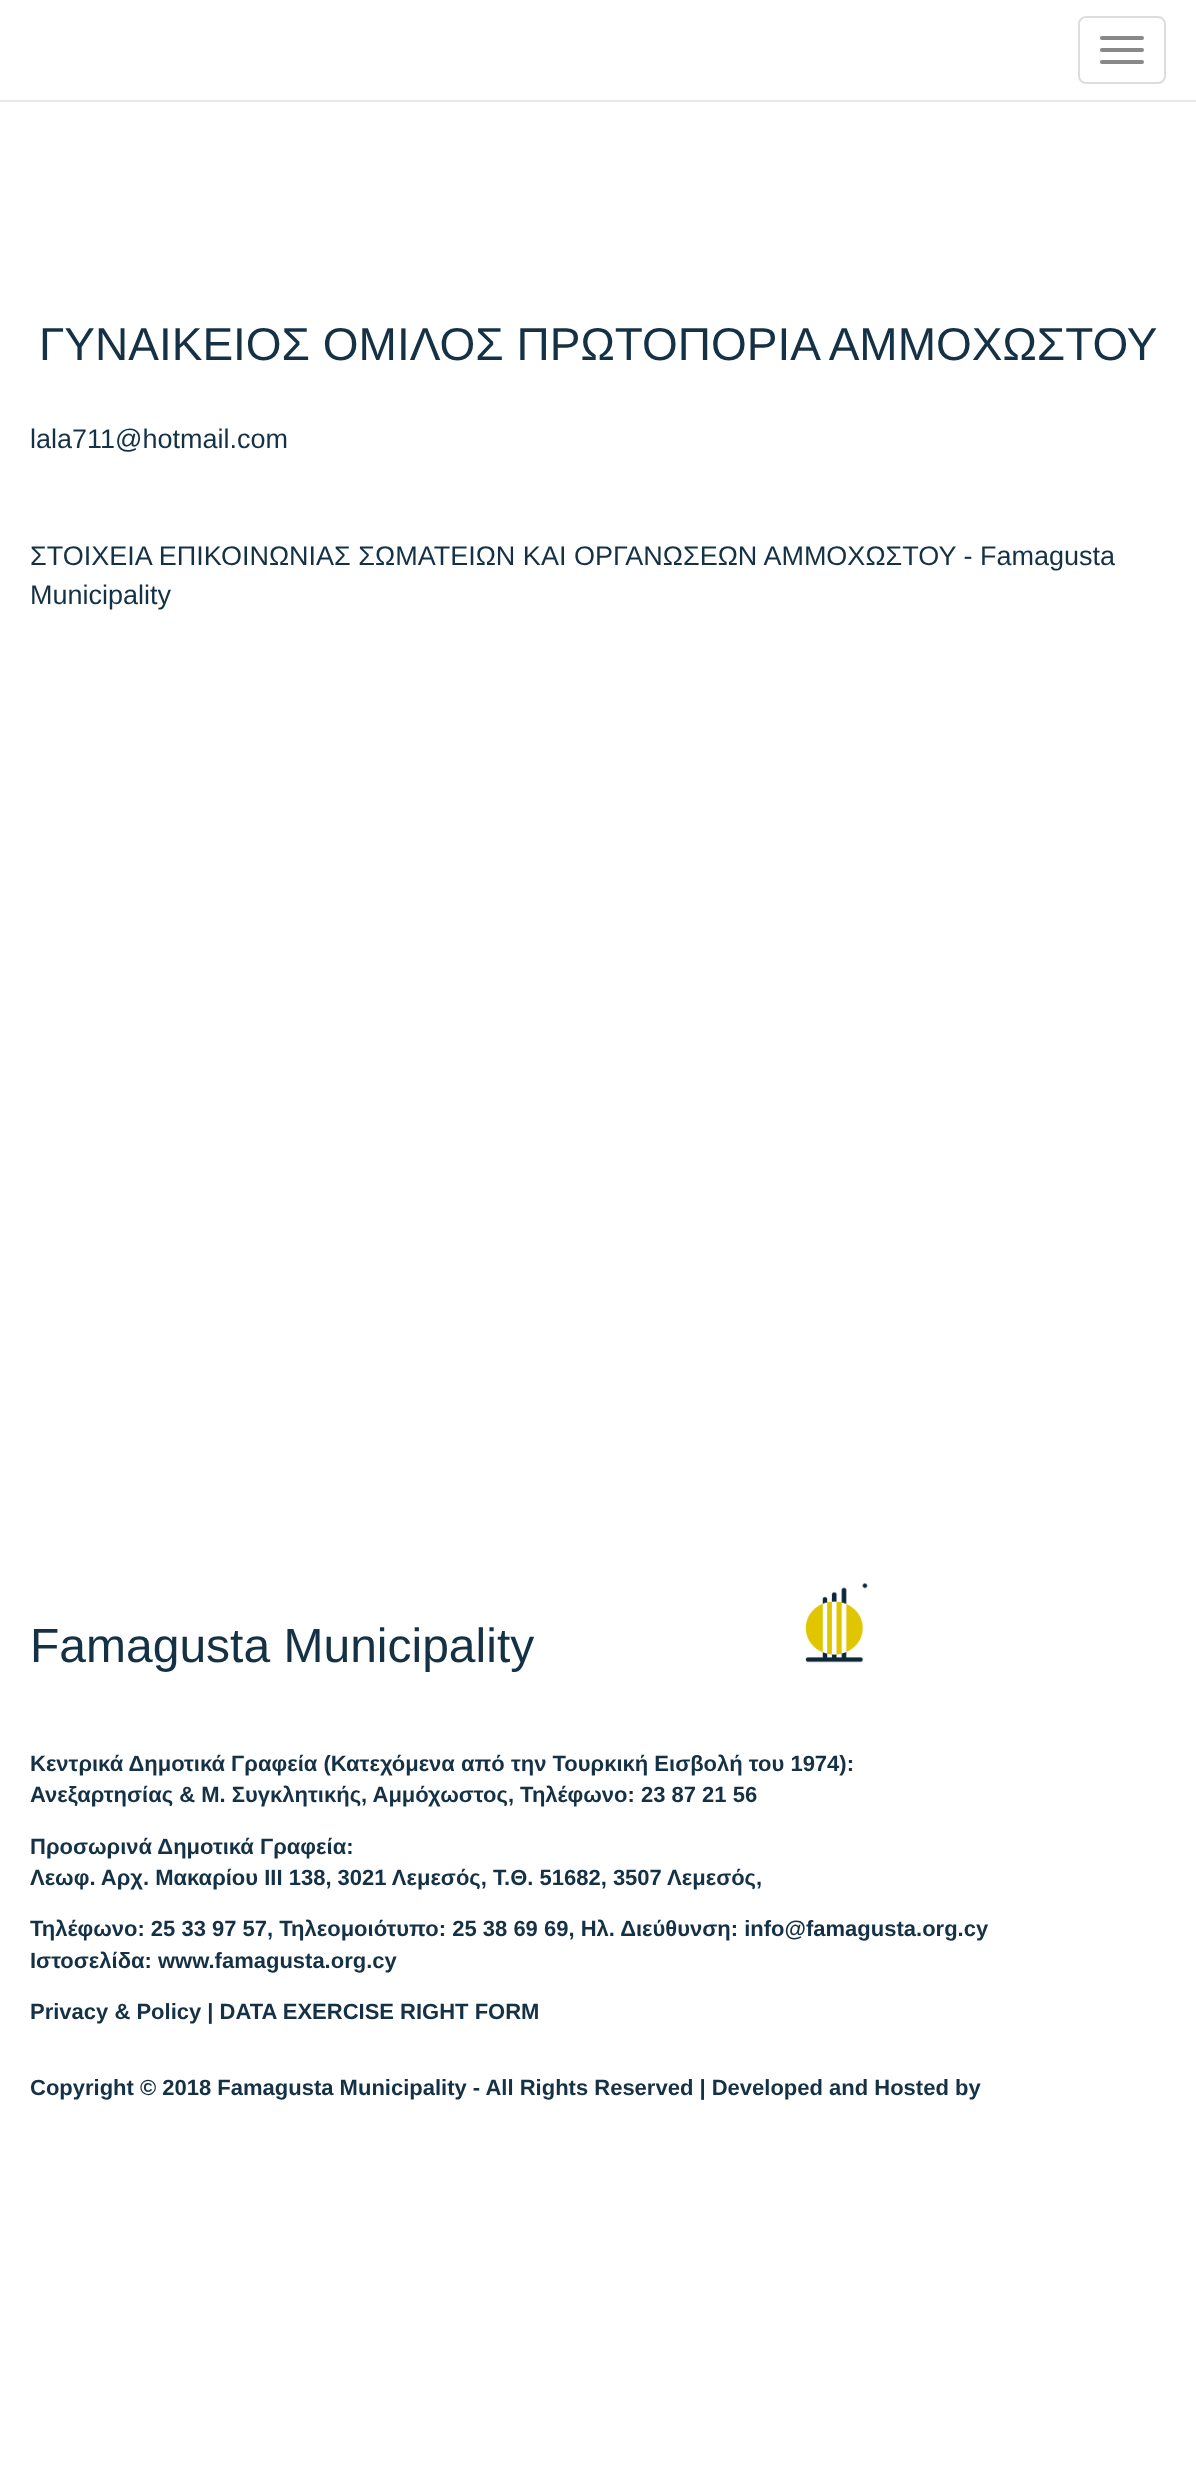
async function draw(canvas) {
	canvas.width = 1196;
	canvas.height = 2472;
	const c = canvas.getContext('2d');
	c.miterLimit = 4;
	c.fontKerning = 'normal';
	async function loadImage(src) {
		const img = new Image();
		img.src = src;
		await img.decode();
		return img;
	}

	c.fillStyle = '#fff';
	c.fillRect(0, 0, 1196, 2472);
	c.fillStyle = '#e7e7e7';
	c.fillRect(0, 100, 1196, 2);
	c.beginPath();
	c.roundRect(1079, 17, 86, 66, 7);
	c.strokeStyle = '#ddd';
	c.lineWidth = 2;
	c.stroke();
	c.fillStyle = '#888';
	c.beginPath();
	c.roundRect(1100, 36, 44, 4, 2);
	c.fill();
	c.beginPath();
	c.roundRect(1100, 48, 44, 4, 2);
	c.fill();
	c.beginPath();
	c.roundRect(1100, 60, 44, 4, 2);
	c.fill();
	c.font = '46px Liberation Sans';
	c.fillStyle = '#153145';
	c.fillText('ΓΥΝΑΙΚΕΙΟΣ ΟΜΙΛΟΣ ΠΡΩΤΟΠΟΡΙΑ ΑΜΜΟΧΩΣΤΟΥ', 39, 360);
	c.font = '27px Liberation Sans';
	for (const [text, x, y] of [
		['lala711@hotmail.com', 30, 448],
		['ΣΤΟΙΧΕΙΑ ΕΠΙΚΟΙΝΩΝΙΑΣ ΣΩΜΑΤΕΙΩΝ ΚΑΙ ΟΡΓΑΝΩΣΕΩΝ ΑΜΜΟΧΩΣΤΟΥ - Famagusta', 30, 565],
		['Municipality', 30, 604],
	]) {
		c.fillText(text, x, y);
	}
	c.font = '48px Liberation Sans';
	c.fillText('Famagusta Municipality', 30, 1662);
	c.drawImage(await loadImage('img1.png'), 805, 1583, 63, 80);
	c.font = 'bold 22px Liberation Sans';
	for (const [text, x, y] of [
		['Κεντρικά Δημοτικά Γραφεία (Κατεχόμενα από την Τουρκική Εισβολή του 1974):', 30, 1771],
		['Ανεξαρτησίας & Μ. Συγκλητικής, Αμμόχωστος, Τηλέφωνο: 23 87 21 56', 30, 1802],
		['Προσωρινά Δημοτικά Γραφεία:', 30, 1854],
		['Λεωφ. Αρχ. Μακαρίου ΙΙΙ 138, 3021 Λεμεσός, Τ.Θ. 51682, 3507 Λεμεσός,', 30, 1885],
		['Τηλέφωνο: 25 33 97 57, Τηλεομοιότυπο: 25 38 69 69, Ηλ. Διεύθυνση: info@famagusta.org.cy', 30, 1936],
		['Ιστοσελίδα: www.famagusta.org.cy', 30, 1968],
		['Privacy & Policy | DATA EXERCISE RIGHT FORM', 30, 2019],
		['Copyright © 2018 Famagusta Municipality - All Rights Reserved | Developed and Hosted by', 30, 2095],
	]) {
		c.fillText(text, x, y);
	}
}

draw(document.querySelector('canvas'));
